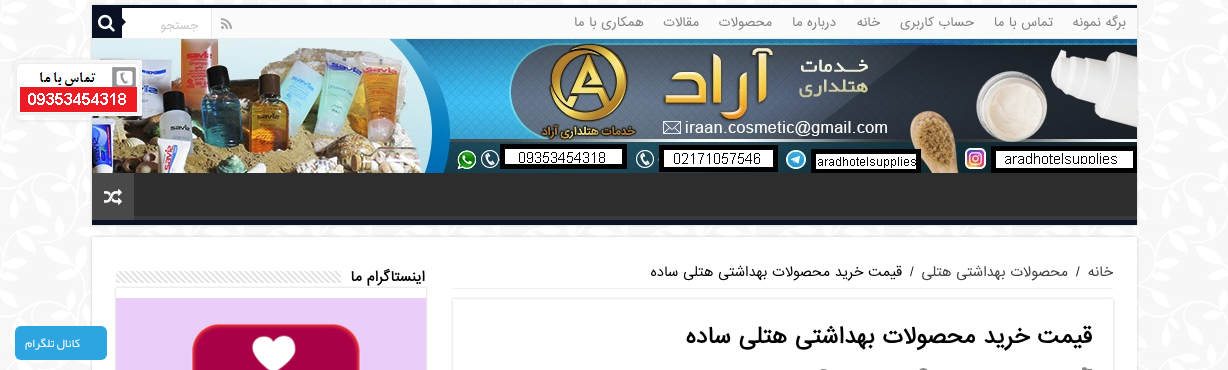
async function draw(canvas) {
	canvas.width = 1228;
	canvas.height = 370;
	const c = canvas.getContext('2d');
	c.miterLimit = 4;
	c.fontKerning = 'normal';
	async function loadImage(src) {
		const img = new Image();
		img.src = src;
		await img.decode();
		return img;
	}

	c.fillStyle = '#fff';
	c.fillRect(0, 0, 1228, 370);
	c.drawImage(await loadImage('img1.png'), 0, 0, 1228, 370);
	c.fillStyle = '#cacaca';
	c.filter = 'blur(1.5px)';
	c.beginPath();
	c.rect(92, 5, 1045, 220);
	c.fill();
	c.filter = 'none';
	for (const [x, y, w, h, color] of [
		[92, 5, 1045, 3, '#081224'],
		[212, 8, 925, 30, '#fbfbfb'],
		[92, 38, 1045, 1, '#ececec'],
	]) {
		c.fillStyle = color;
		c.fillRect(x, y, w, h);
	}
	c.direction = 'rtl';
	c.font = '12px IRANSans';
	c.fillStyle = '#838383';
	for (const [text, x, y] of [
		['برگه نمونه', 1126, 26],
		['تماس با ما', 1053, 26],
		['حساب کاربری', 974, 26],
		['خانه', 880, 26],
		['درباره ما', 836, 26],
		['محصولات', 772, 26],
		['مقالات', 699, 26],
		['همکاری با ما', 644, 26],
	]) {
		c.fillText(text, x, y);
	}
	c.drawImage(await loadImage('img2.png'), 221, 18, 11, 11);
	c.fillStyle = '#fff';
	c.fillRect(122, 8, 89, 30);
	c.fillStyle = '#ececec';
	c.fillRect(211, 8, 1, 30);
	c.font = '11px IRANSans';
	c.fillStyle = '#c5c5c5';
	c.fillText('جستجو', 198, 29);
	c.fillStyle = '#081224';
	c.fillRect(92, 8, 30, 30);
	c.drawImage(await loadImage('img3.png'), 98, 14, 17, 18);
	c.beginPath();
	c.moveTo(122, 26);
	c.lineTo(122, 18);
	c.lineTo(126, 22);
	c.closePath();
	c.fill();
	c.drawImage(await loadImage('img4.png'), 92, 39, 1045, 134);
	c.fillStyle = '#2d2d2d';
	c.fillRect(134, 173, 1003, 43);
	c.save();
	c.beginPath();
	c.rect(92, 173, 1045, 47);
	c.clip();
	c.fillStyle = '#393939';
	c.beginPath();
	c.moveTo(-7, 74);
	c.lineTo(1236, 74);
	c.lineTo(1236, 319);
	c.lineTo(-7, 319);
	c.closePath();
	c.moveTo(91, 167);
	c.lineTo(1137, 167);
	c.lineTo(1137, 207);
	c.bezierCurveTo(1137, 208, 1138, 216, 1136, 216);
	c.lineTo(91, 216);
	c.lineTo(90, 215);
	c.lineTo(90, 167);
	c.closePath();
	c.fill('evenodd');
	c.restore();
	c.fillStyle = '#081224';
	c.fillRect(92, 220, 1045, 5);
	c.fillStyle = '#494949';
	c.fillRect(92, 173, 42, 47);
	c.drawImage(await loadImage('img5.png'), 104, 188, 18, 17);
	c.fillStyle = '#cacaca';
	c.filter = 'blur(1.5px)';
	c.beginPath();
	c.rect(92, 237, 1045, 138);
	c.fill();
	c.filter = 'none';
	c.fillStyle = '#fff';
	c.fillRect(92, 237, 1045, 133);
	c.fillStyle = '#eee';
	c.fillRect(453, 288, 660, 1);
	c.font = '13px IRANSans';
	c.fillStyle = '#444';
	c.fillText('خانه', 1113, 276);
	c.direction = 'ltr';
	c.fillStyle = '#000';
	c.fillText('/', 1076, 276);
	c.direction = 'rtl';
	c.fillStyle = '#444';
	c.fillText('محصولات بهداشتی هتلی', 1068, 276);
	c.direction = 'ltr';
	c.fillStyle = '#000';
	c.fillText('/', 910, 276);
	c.direction = 'rtl';
	c.fillText('قیمت خرید محصولات بهداشتی هتلی ساده', 902, 276);
	c.save();
	c.beginPath();
	c.moveTo(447, 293);
	c.lineTo(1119, 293);
	c.lineTo(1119, 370);
	c.lineTo(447, 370);
	c.closePath();
	c.moveTo(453, 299);
	c.lineTo(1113, 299);
	c.lineTo(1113, 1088);
	c.lineTo(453, 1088);
	c.closePath();
	c.clip('evenodd');
	c.fillStyle = '#cacaca';
	c.filter = 'blur(1.5px)';
	c.beginPath();
	c.rect(453, 299, 660, 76);
	c.fill();
	c.filter = 'none';
	c.restore();
	c.font = 'bold 21px IRANSans';
	c.fillText('قیمت خرید محصولات بهداشتی هتلی ساده', 1092, 343);
	c.drawImage(await loadImage('img6.png'), 1082, 367, 11, 3);
	c.drawImage(await loadImage('img7.png'), 919, 368, 9, 2);
	c.drawImage(await loadImage('img8.png'), 820, 368, 7, 2);
	c.save();
	c.beginPath();
	c.moveTo(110, 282);
	c.lineTo(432, 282);
	c.lineTo(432, 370);
	c.lineTo(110, 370);
	c.closePath();
	c.moveTo(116, 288);
	c.lineTo(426, 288);
	c.lineTo(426, 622);
	c.lineTo(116, 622);
	c.closePath();
	c.clip('evenodd');
	c.fillStyle = '#cacaca';
	c.filter = 'blur(1.5px)';
	c.beginPath();
	c.rect(116, 288, 310, 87);
	c.fill();
	c.filter = 'none';
	c.restore();
	c.font = 'bold 13px IRANSans';
	c.fillText('اینستاگرام ما', 425, 281);
	c.drawImage(await loadImage('img9.png'), 116, 271, 225, 12);
	c.drawImage(await loadImage('img10.png'), 116, 298, 310, 72);
	c.save();
	c.beginPath();
	c.moveTo(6, 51);
	c.lineTo(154, 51);
	c.lineTo(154, 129);
	c.lineTo(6, 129);
	c.closePath();
	c.moveTo(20, 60);
	c.lineTo(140, 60);
	c.bezierCurveTo(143, 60, 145, 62, 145, 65);
	c.lineTo(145, 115);
	c.bezierCurveTo(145, 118, 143, 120, 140, 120);
	c.lineTo(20, 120);
	c.bezierCurveTo(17, 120, 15, 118, 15, 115);
	c.lineTo(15, 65);
	c.bezierCurveTo(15, 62, 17, 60, 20, 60);
	c.closePath();
	c.clip('evenodd');
	c.fillStyle = '#ddd';
	c.filter = 'blur(2.5px)';
	c.beginPath();
	c.roundRect(15, 60, 130, 60, 5);
	c.fill();
	c.filter = 'none';
	c.restore();
	c.drawImage(await loadImage('img11.png'), 15, 60, 127, 56);
	c.fillStyle = '#2ca5e0';
	c.beginPath();
	c.roundRect(15, 326, 92, 34, 6);
	c.fill();
	c.font = '12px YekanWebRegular';
	c.fillStyle = '#fff';
	c.fillText('کانال تلگرام', 80, 347);
}

draw(document.querySelector('canvas'));
